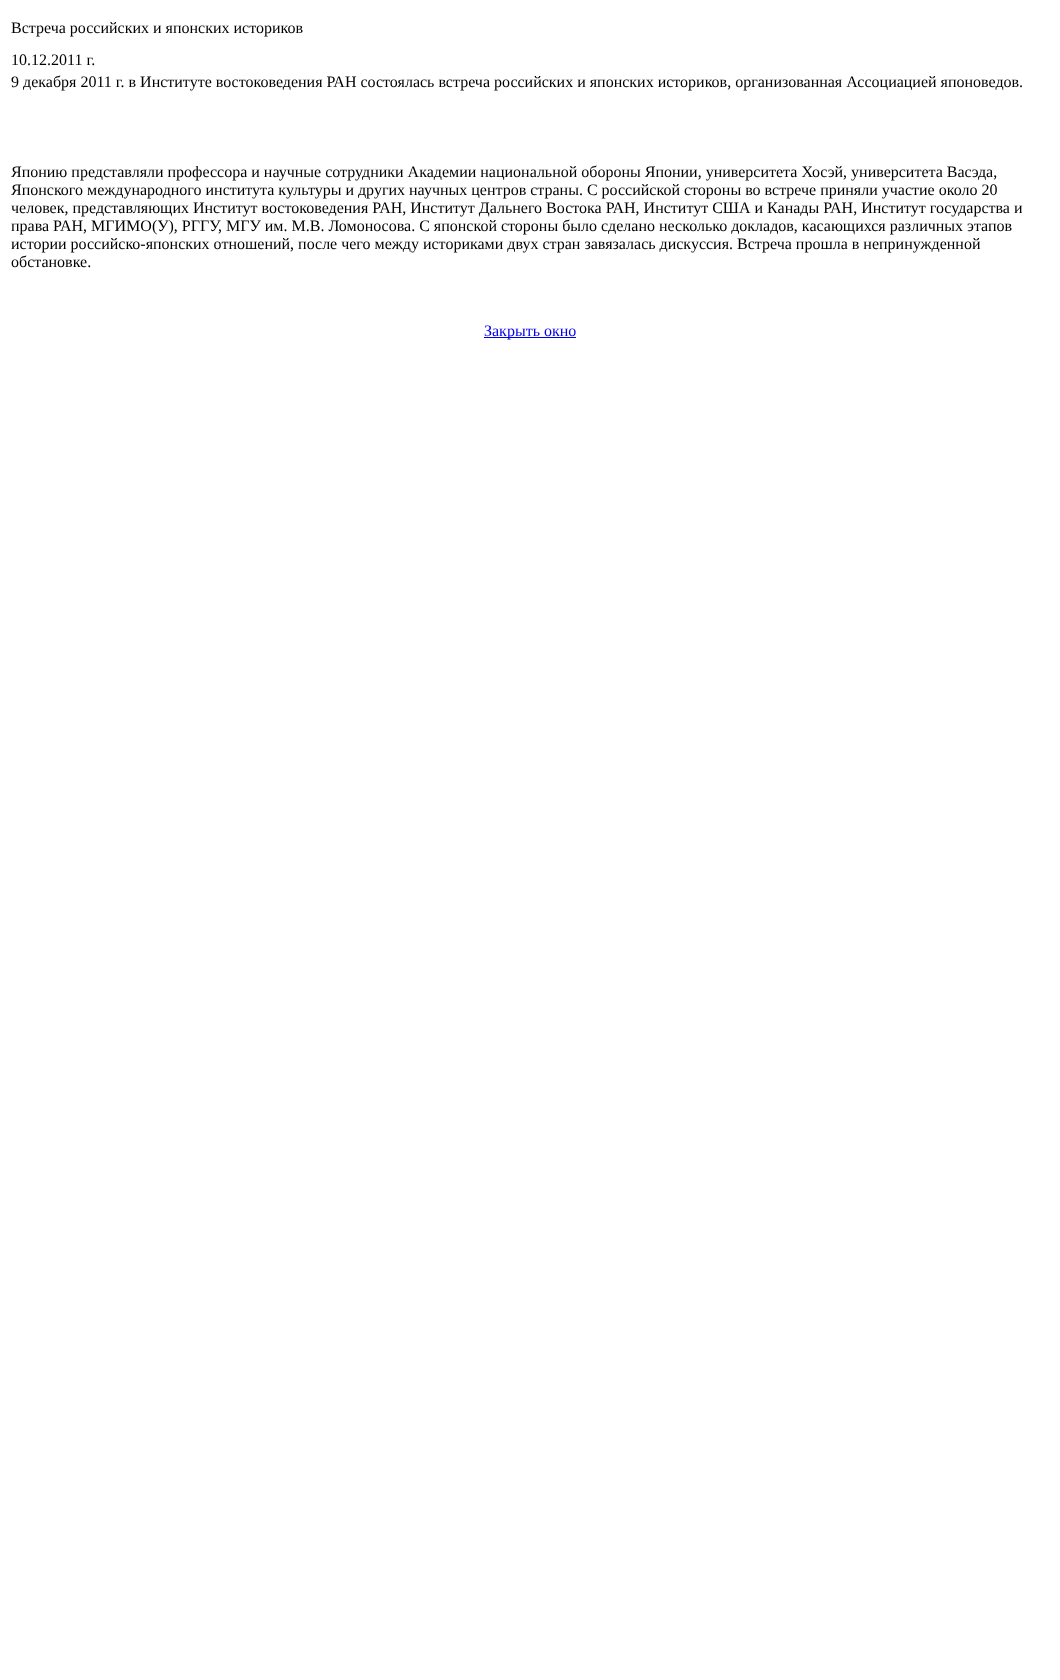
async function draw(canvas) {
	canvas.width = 1060;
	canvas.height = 1680;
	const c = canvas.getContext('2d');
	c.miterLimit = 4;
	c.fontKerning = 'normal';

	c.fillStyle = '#fff';
	c.fillRect(0, 0, 1060, 1680);
	c.font = '16px Liberation Serif';
	c.fillStyle = '#000';
	for (const [text, x, y] of [
		['Встреча российских и японских историков', 11, 33],
		['10.12.2011 г.', 11, 65],
		['9 декабря 2011 г. в Институте востоковедения РАН состоялась встреча российских и японских историков, организованная Ассоциацией японоведов.', 11, 87],
		['Японию представляли профессора и научные сотрудники Академии национальной обороны Японии, университета Хосэй, университета Васэда,', 11, 177],
		['Японского международного института культуры и других научных центров страны. С российской стороны во встрече приняли участие около 20', 11, 195],
		['человек, представляющих Институт востоковедения РАН, Институт Дальнего Востока РАН, Институт США и Канады РАН, Институт государства и', 11, 213],
		['права РАН, МГИМО(У), РГГУ, МГУ им. М.В. Ломоносова. С японской стороны было сделано несколько докладов, касающихся различных этапов', 11, 231],
		['истории российско-японских отношений, после чего между историками двух стран завязалась дискуссия. Встреча прошла в непринужденной', 11, 249],
		['обстановке.', 11, 267],
	]) {
		c.fillText(text, x, y);
	}
	c.fillStyle = '#00e';
	c.fillRect(484, 337, 92, 1);
	c.fillText('Закрыть окно', 484, 336);
}

draw(document.querySelector('canvas'));
